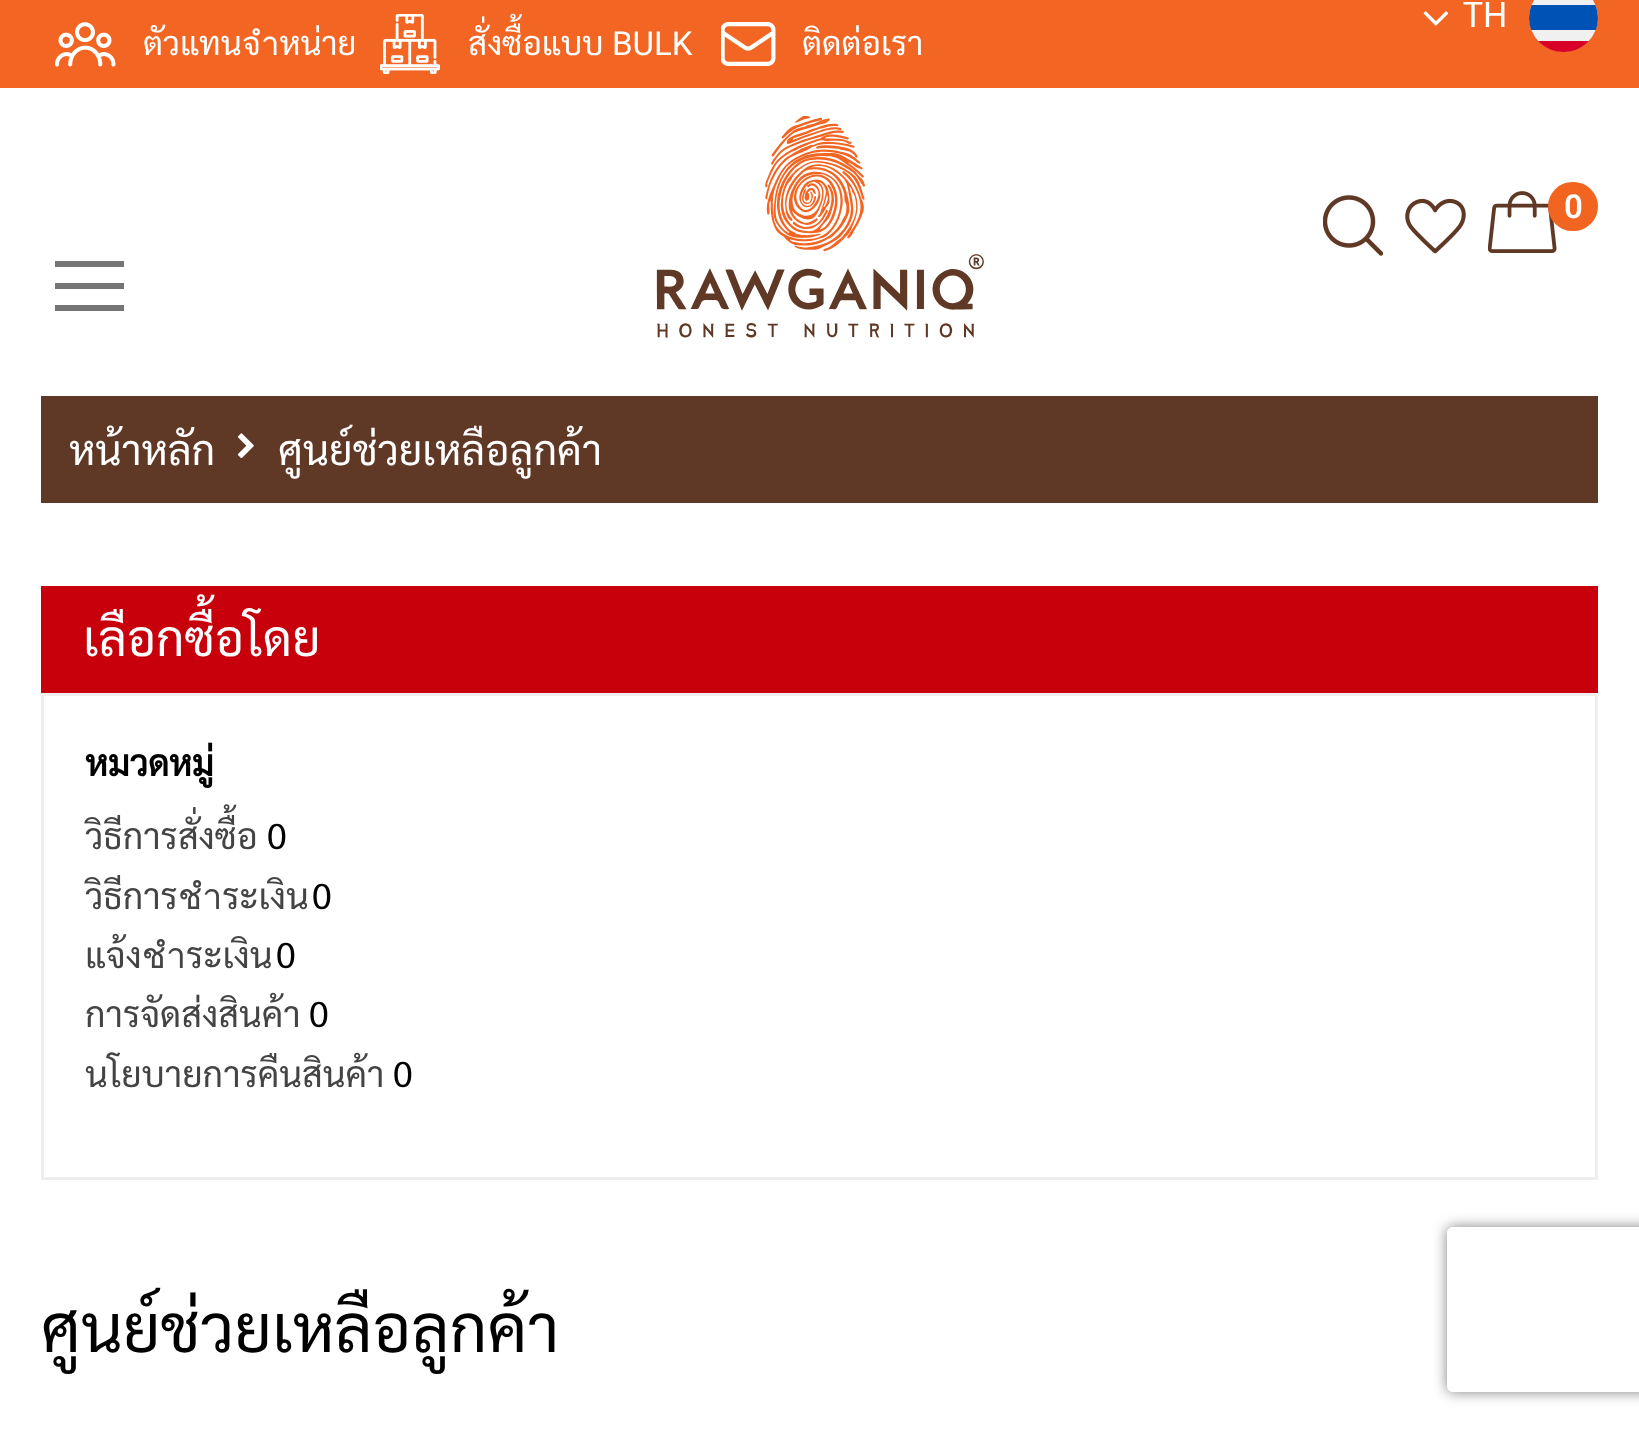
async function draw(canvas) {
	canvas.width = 1639;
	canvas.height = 1429;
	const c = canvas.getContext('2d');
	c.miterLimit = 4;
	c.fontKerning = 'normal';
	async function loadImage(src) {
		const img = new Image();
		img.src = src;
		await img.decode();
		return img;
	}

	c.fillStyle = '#fff';
	c.fillRect(0, 0, 1639, 1429);
	c.fillStyle = '#f26522';
	c.fillRect(0, 0, 1639, 88);
	c.drawImage(await loadImage('img1.png'), 55, 22, 61, 45);
	c.font = '33px Sarabun';
	c.fillStyle = '#fff';
	c.fillText('ตัวแทนจำหน่าย', 143, 55);
	c.drawImage(await loadImage('img2.png'), 380, 14, 60, 60);
	c.fillText('สั่งซื้อแบบ', 468, 55);
	c.font = '33px Roboto';
	c.fillText('BULK', 612, 55);
	c.drawImage(await loadImage('img3.png'), 721, 22, 55, 44);
	c.font = '33px Sarabun';
	c.fillText('ติดต่อเรา', 802, 55);
	c.drawImage(await loadImage('img4.png'), 656, 116, 328, 222);
	c.drawImage(await loadImage('img5.png'), 1423, 11, 26, 15);
	c.font = '35.75px Sarabun';
	c.fillText('TH', 1463, 27);
	c.save();
	c.beginPath();
	c.roundRect(1529, -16, 69, 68, 34);
	c.clip();
	c.fillStyle = '#f0f0f0';
	c.beginPath();
	c.roundRect(1529, 0, 69, 52, [0, 0, 34, 34]);
	c.fill();
	c.fillStyle = '#0052b4';
	c.fillRect(1529, 5, 69, 25);
	c.fillStyle = '#d80027';
	c.fillRect(1538, 41, 51, 11);
	c.restore();
	c.drawImage(await loadImage('img6.png'), 1323, 195, 60, 61);
	c.drawImage(await loadImage('img7.png'), 1405, 198, 61, 56);
	c.drawImage(await loadImage('img8.png'), 1488, 191, 69, 62);
	c.fillStyle = '#f26521';
	c.beginPath();
	c.roundRect(1548, 182, 50, 49, 24.5);
	c.fill();
	c.font = '600 33px Roboto';
	c.fillStyle = '#fff';
	c.fillText('0', 1564, 218);
	for (const [x, y, w, h, color] of [
		[55, 261, 69, 6, '#757575'],
		[55, 283, 69, 6, '#757575'],
		[55, 305, 69, 6, '#757575'],
		[41, 396, 1557, 107, '#603826'],
	]) {
		c.fillStyle = color;
		c.fillRect(x, y, w, h);
	}
	c.font = '41.25px Sarabun';
	c.fillStyle = '#fff';
	c.fillText('หน้าหลัก', 69, 465);
	c.drawImage(await loadImage('img9.png'), 237, 433, 17, 25);
	c.fillText('ศูนย์ช่วยเหลือลูกค้า', 278, 465);
	c.fillStyle = '#c7000c';
	c.fillRect(41, 586, 1557, 107);
	c.font = '49.5px Sarabun';
	c.fillStyle = '#fff';
	c.fillText('เลือกซื้อโดย', 83, 656);
	c.strokeStyle = '#eee';
	c.lineWidth = 3;
	c.strokeRect(42.5, 694.5, 1554, 484);
	c.font = 'bold 35.75px Sarabun';
	c.fillStyle = '#000';
	c.fillText('หมวดหมู่', 85, 776);
	c.font = '35.75px Sarabun';
	c.fillStyle = '#444';
	c.fillText('วิธีการสั่งซื้อ', 85, 849);
	c.fillStyle = '#000';
	c.fillText('0', 267, 849);
	c.fillStyle = '#444';
	c.fillText('วิธีการชำระเงิน', 85, 909);
	c.fillStyle = '#000';
	c.fillText('0', 312, 909);
	c.fillStyle = '#444';
	c.fillText('แจ้งชำระเงิน', 85, 968);
	c.fillStyle = '#000';
	c.fillText('0', 276, 968);
	c.fillStyle = '#444';
	c.fillText('การจัดส่งสินค้า', 85, 1027);
	c.fillStyle = '#000';
	c.fillText('0', 309, 1027);
	c.fillStyle = '#444';
	c.fillText('นโยบายการคืนสินค้า', 85, 1087);
	c.fillStyle = '#000';
	c.fillText('0', 393, 1087);
	c.font = '66px Sarabun';
	c.fillText('ศูนย์ช่วยเหลือลูกค้า', 41, 1352);
	c.save();
	c.beginPath();
	c.moveTo(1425, 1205);
	c.lineTo(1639, 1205);
	c.lineTo(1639, 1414);
	c.lineTo(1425, 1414);
	c.closePath();
	c.moveTo(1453, 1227);
	c.lineTo(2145, 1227);
	c.bezierCurveTo(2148.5, 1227, 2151, 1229.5, 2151, 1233);
	c.lineTo(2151, 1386);
	c.bezierCurveTo(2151, 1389.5, 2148.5, 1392, 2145, 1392);
	c.lineTo(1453, 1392);
	c.bezierCurveTo(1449.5, 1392, 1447, 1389.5, 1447, 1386);
	c.lineTo(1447, 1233);
	c.bezierCurveTo(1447, 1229.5, 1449.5, 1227, 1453, 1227);
	c.closePath();
	c.clip('evenodd');
	c.fillStyle = '#808080';
	c.filter = 'blur(7px)';
	c.beginPath();
	c.roundRect(1447, 1227, 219, 165, 6);
	c.fill();
	c.filter = 'none';
	c.restore();
}

draw(document.querySelector('canvas'));
